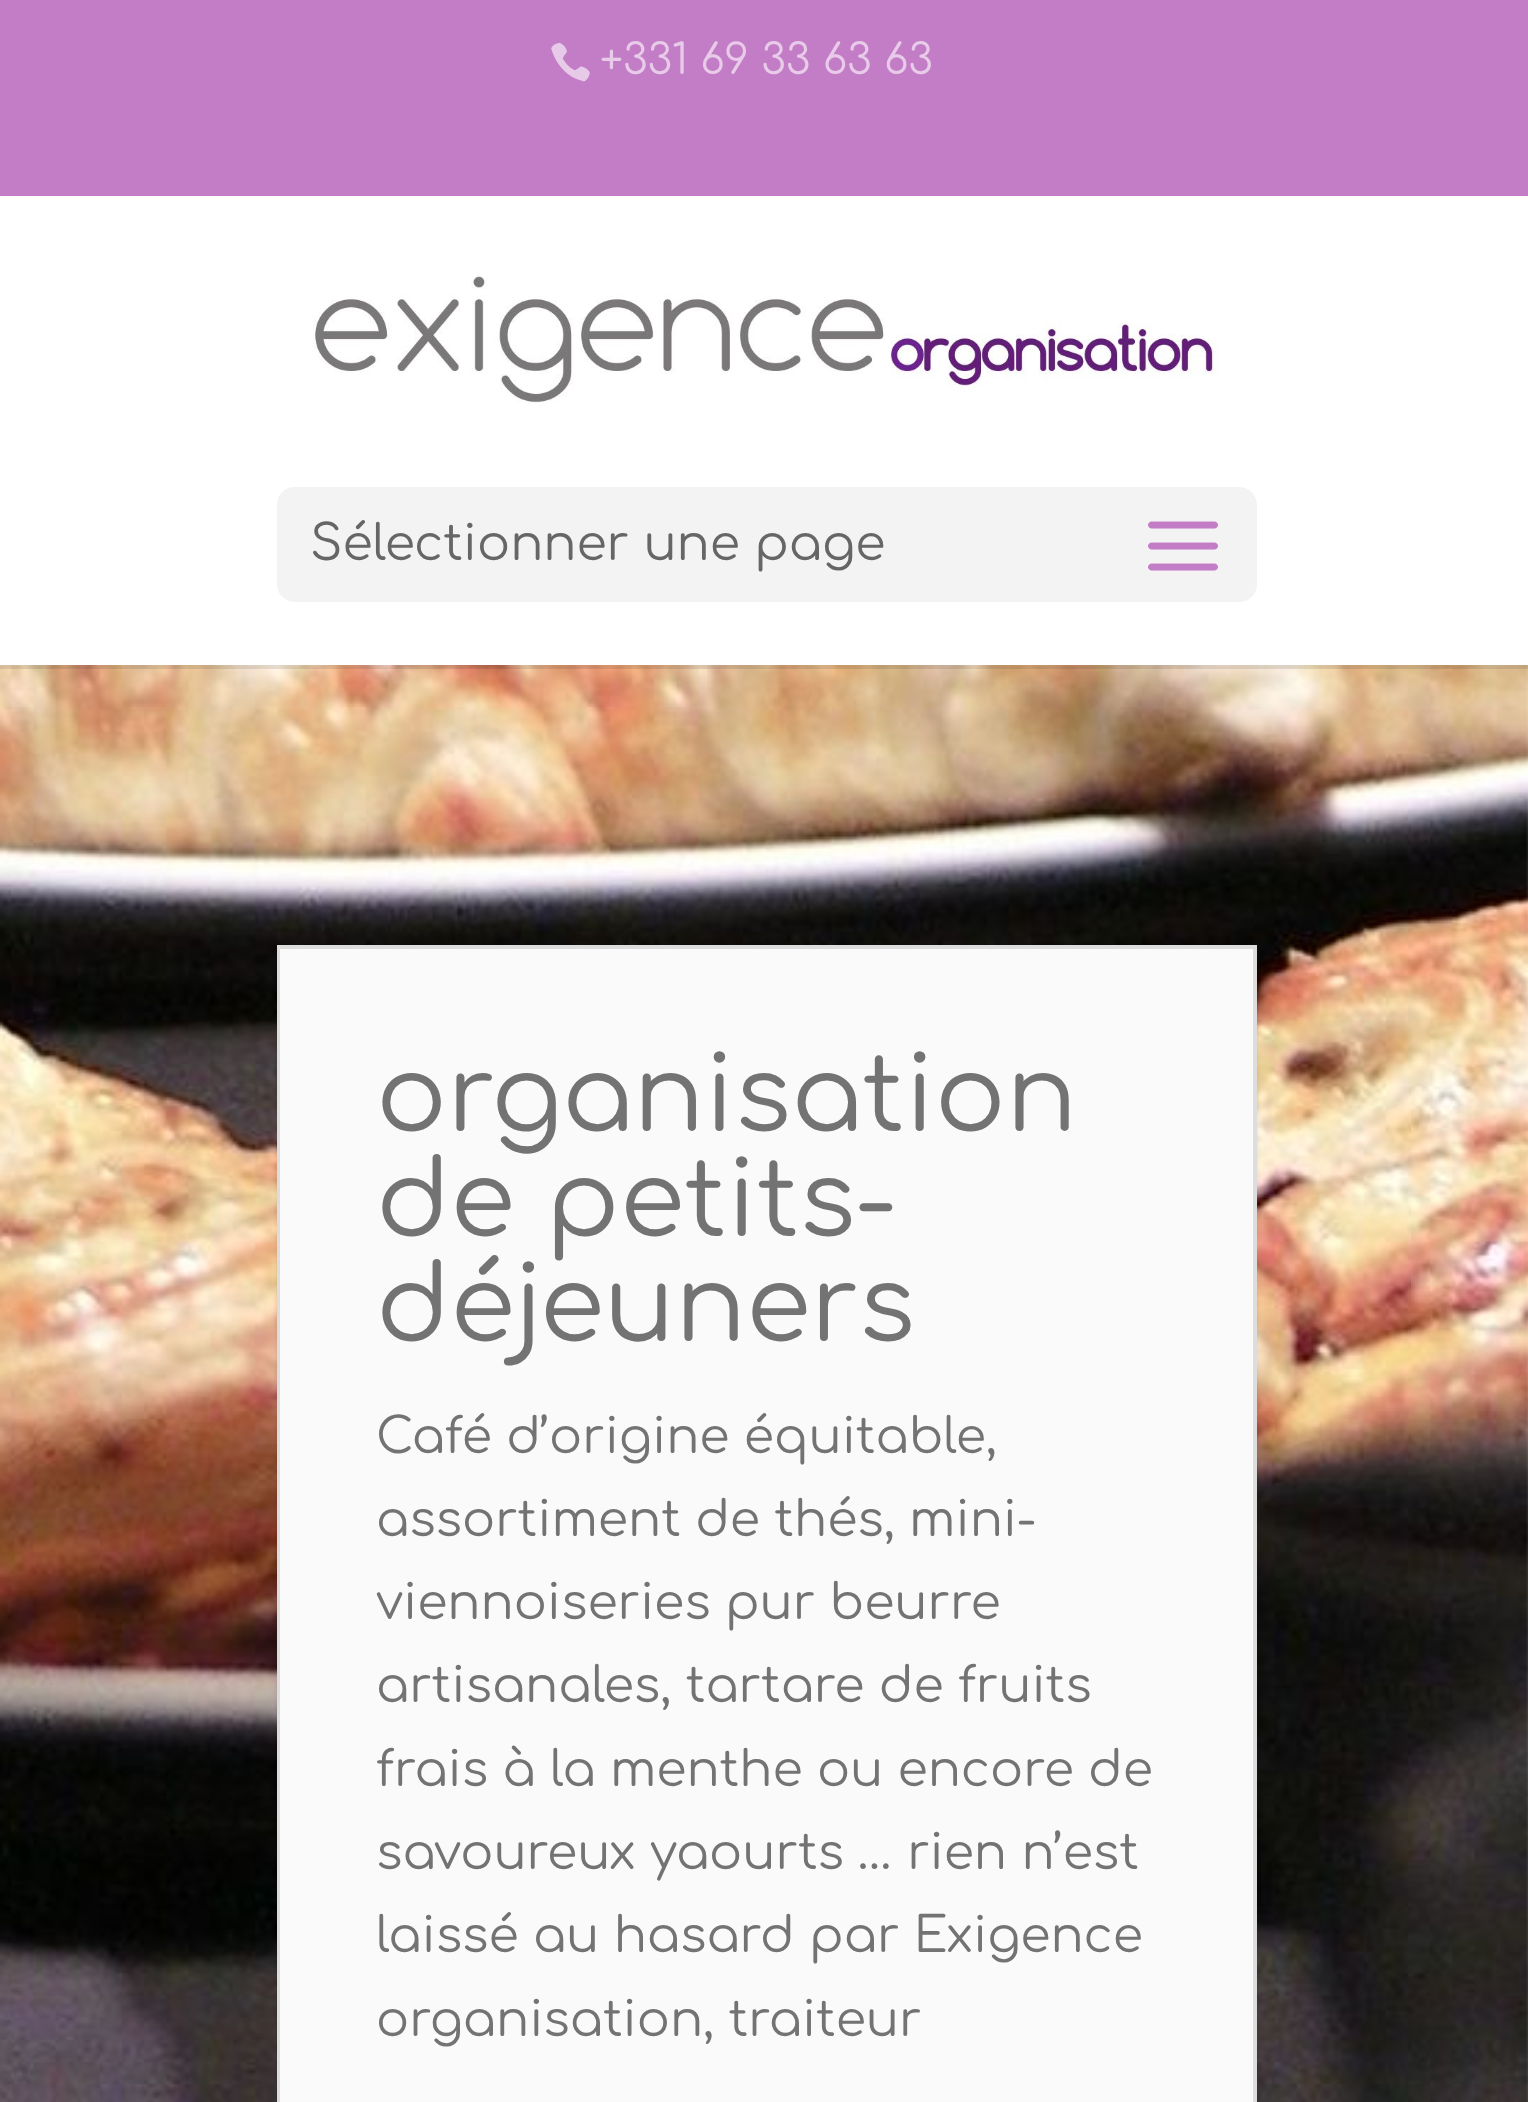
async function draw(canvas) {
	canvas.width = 1528;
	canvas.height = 2102;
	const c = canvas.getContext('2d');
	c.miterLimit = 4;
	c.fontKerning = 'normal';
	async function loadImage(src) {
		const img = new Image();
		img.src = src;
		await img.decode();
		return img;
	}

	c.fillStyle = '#fff';
	c.fillRect(0, 0, 1528, 2102);
	c.fillStyle = '#c37cc6';
	c.fillRect(0, 0, 1528, 196);
	c.drawImage(await loadImage('img1.png'), 551, 42, 39, 40);
	c.font = '42px Comfortaa';
	c.fillStyle = '#e7cbe8';
	c.fillText('+331 69 33 63 63', 600, 74);
	c.drawImage(await loadImage('img4.png'), 0, 665, 1528, 1437);
	c.fillStyle = '#0000001a';
	c.beginPath();
	c.moveTo(0, 665);
	c.lineTo(0, 669);
	c.lineTo(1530, 669);
	c.lineTo(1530, 200);
	c.lineTo(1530, 665);
	c.closePath();
	c.fill();
	c.drawImage(await loadImage('img2.png'), 313, 273, 907, 130);
	c.fillStyle = '#f3f3f3';
	c.beginPath();
	c.roundRect(277, 487, 980, 115, 18);
	c.fill();
	c.font = '49px Comfortaa';
	c.fillStyle = '#666';
	c.fillText('Sélectionner une page', 310, 560);
	c.drawImage(await loadImage('img3.png'), 1148, 521, 70, 50);
	c.fillStyle = '#0000001a';
	c.filter = 'blur(2px)';
	c.beginPath();
	c.rect(277, 949, 980, 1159);
	c.fill();
	c.filter = 'none';
	c.strokeStyle = '#ddd';
	c.lineWidth = 4;
	c.strokeRect(279, 947, 976, 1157);
	c.fillStyle = '#fafafa';
	c.fillRect(280, 949, 973, 1153);
	c.font = '105px Comfortaa';
	c.fillStyle = '#737373';
	for (const [text, x, y] of [
		['organisation', 376, 1131],
		['de petits-', 376, 1236],
		['déjeuners', 376, 1341],
	]) {
		c.fillText(text, x, y);
	}
	c.font = '49px Comfortaa';
	for (const [text, x, y] of [
		['Café d’origine équitable,', 376, 1453],
		['assortiment de thés, mini-', 376, 1536],
		['viennoiseries pur beurre', 376, 1619],
		['artisanales, tartare de fruits', 376, 1702],
		['frais à la menthe ou encore de', 376, 1786],
		['savoureux yaourts … rien n’est', 376, 1869],
		['laissé au hasard par Exigence', 376, 1952],
		['organisation, traiteur', 376, 2036],
	]) {
		c.fillText(text, x, y);
	}
}

draw(document.querySelector('canvas'));
